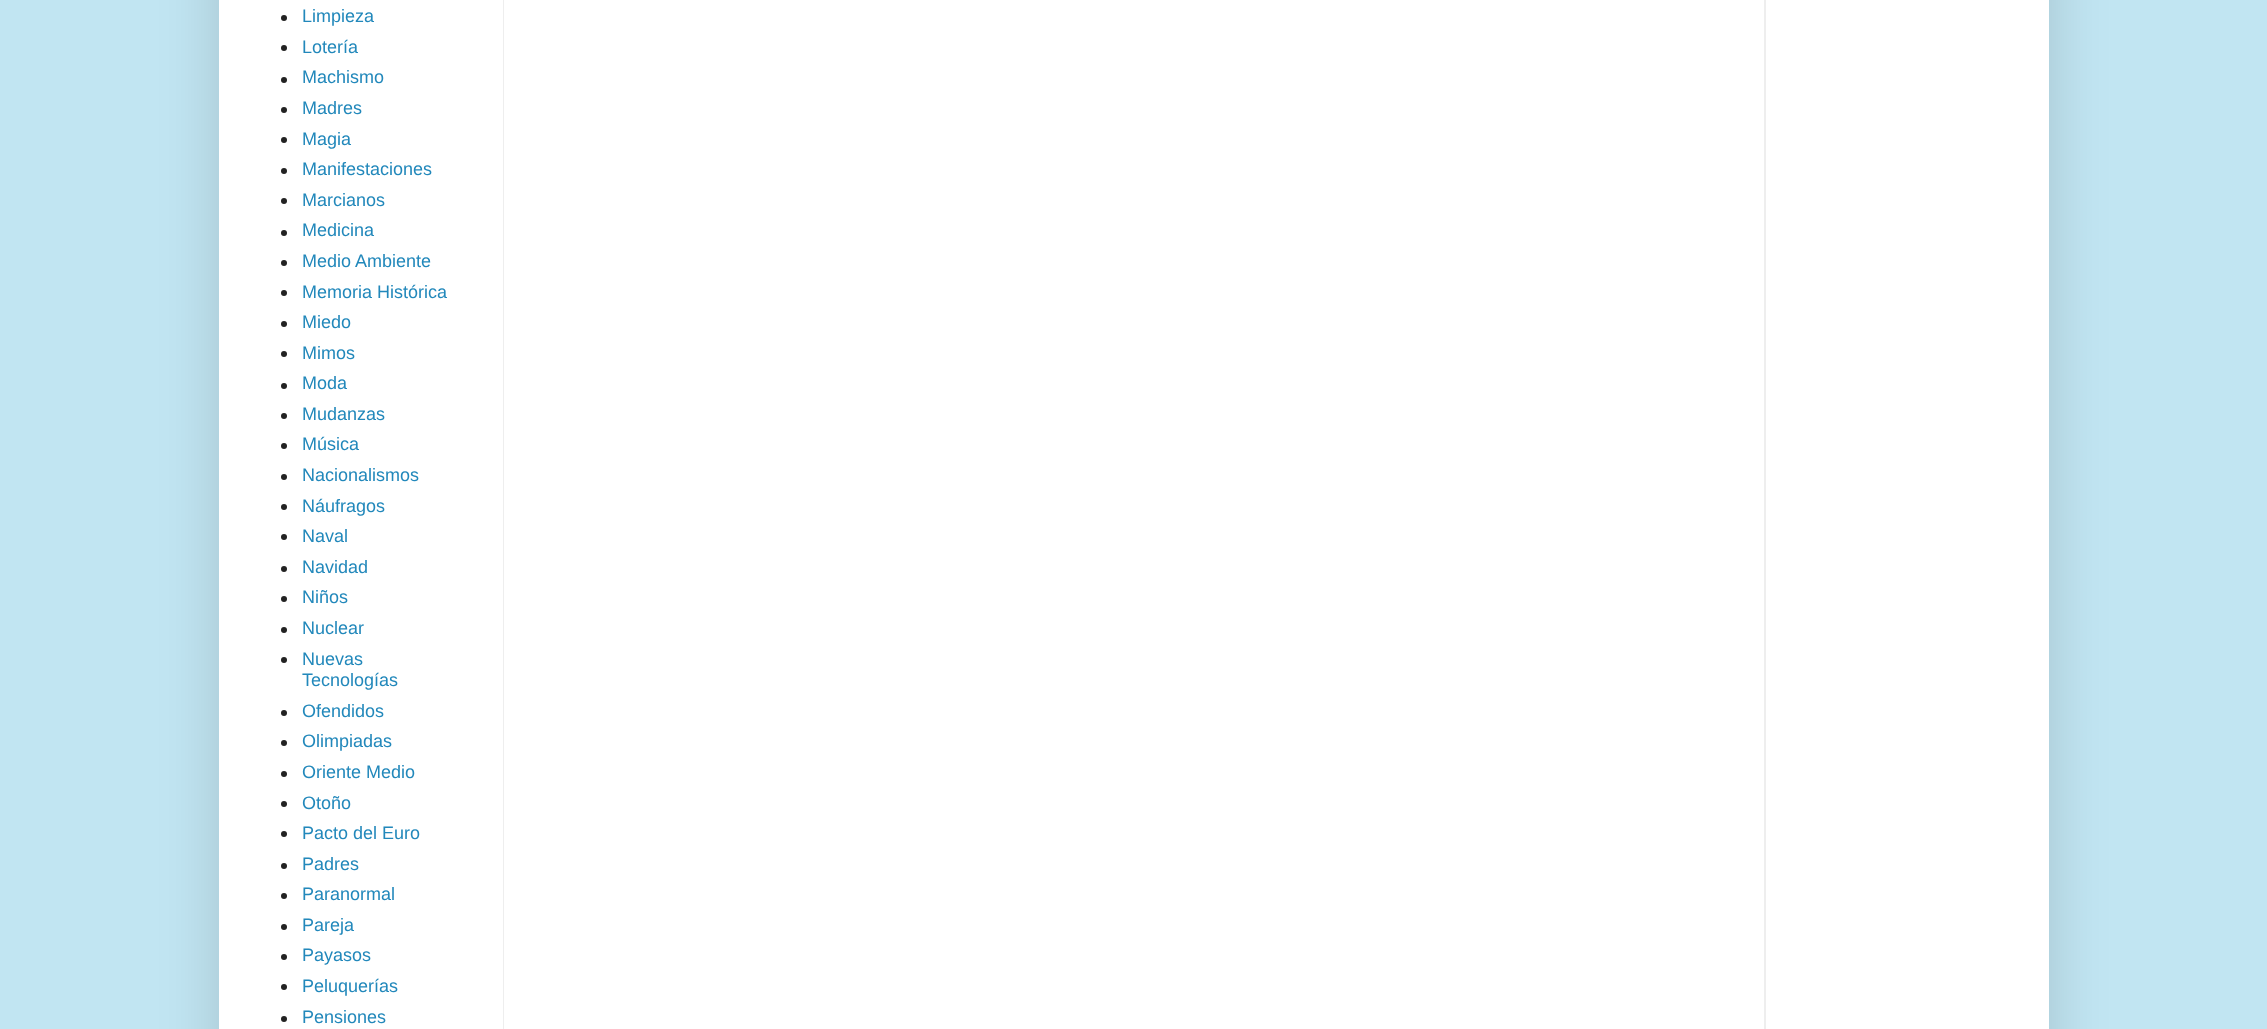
async function draw(canvas) {
	canvas.width = 2267;
	canvas.height = 1029;
	const c = canvas.getContext('2d');
	c.miterLimit = 4;
	c.fontKerning = 'normal';

	c.fillStyle = '#c1e5f2';
	c.fillRect(0, 0, 2267, 1029);
	c.fillStyle = '#00000026';
	c.filter = 'blur(30px)';
	c.beginPath();
	c.rect(219, -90, 1830, 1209);
	c.fill();
	c.filter = 'none';
	c.fillStyle = '#fff';
	c.fillRect(219, 0, 1830, 1029);
	c.fillStyle = '#222';
	c.beginPath();
	c.arc(284, 18, 3, 0, 2 * Math.PI);
	c.fill();
	c.font = '18px Liberation Sans';
	c.fillStyle = '#28b';
	c.fillText('Limpieza', 302, 22);
	c.fillStyle = '#222';
	c.beginPath();
	c.arc(284, 48, 3, 0, 2 * Math.PI);
	c.fill();
	c.fillStyle = '#28b';
	c.fillText('Lotería', 302, 53);
	c.fillStyle = '#222';
	c.beginPath();
	c.arc(284, 80, 3, 0, 2 * Math.PI);
	c.fill();
	c.fillStyle = '#28b';
	c.fillText('Machismo', 302, 83);
	c.fillStyle = '#222';
	c.beginPath();
	c.arc(284, 110, 3, 0, 2 * Math.PI);
	c.fill();
	c.fillStyle = '#28b';
	c.fillText('Madres', 302, 114);
	c.fillStyle = '#222';
	c.beginPath();
	c.arc(284, 140, 3, 0, 2 * Math.PI);
	c.fill();
	c.fillStyle = '#28b';
	c.fillText('Magia', 302, 145);
	c.fillStyle = '#222';
	c.beginPath();
	c.arc(284, 171, 3, 0, 2 * Math.PI);
	c.fill();
	c.fillStyle = '#28b';
	c.fillText('Manifestaciones', 302, 175);
	c.fillStyle = '#222';
	c.beginPath();
	c.arc(284, 201, 3, 0, 2 * Math.PI);
	c.fill();
	c.fillStyle = '#28b';
	c.fillText('Marcianos', 302, 206);
	c.fillStyle = '#222';
	c.beginPath();
	c.arc(284, 233, 3, 0, 2 * Math.PI);
	c.fill();
	c.fillStyle = '#28b';
	c.fillText('Medicina', 302, 236);
	c.fillStyle = '#222';
	c.beginPath();
	c.arc(284, 263, 3, 0, 2 * Math.PI);
	c.fill();
	c.fillStyle = '#28b';
	c.fillText('Medio Ambiente', 302, 267);
	c.fillStyle = '#222';
	c.beginPath();
	c.arc(284, 293, 3, 0, 2 * Math.PI);
	c.fill();
	c.fillStyle = '#28b';
	c.fillText('Memoria Histórica', 302, 298);
	c.fillStyle = '#222';
	c.beginPath();
	c.arc(284, 324, 3, 0, 2 * Math.PI);
	c.fill();
	c.fillStyle = '#28b';
	c.fillText('Miedo', 302, 328);
	c.fillStyle = '#222';
	c.beginPath();
	c.arc(284, 354, 3, 0, 2 * Math.PI);
	c.fill();
	c.fillStyle = '#28b';
	c.fillText('Mimos', 302, 359);
	c.fillStyle = '#222';
	c.beginPath();
	c.arc(284, 386, 3, 0, 2 * Math.PI);
	c.fill();
	c.fillStyle = '#28b';
	c.fillText('Moda', 302, 389);
	c.fillStyle = '#222';
	c.beginPath();
	c.arc(284, 416, 3, 0, 2 * Math.PI);
	c.fill();
	c.fillStyle = '#28b';
	c.fillText('Mudanzas', 302, 420);
	c.fillStyle = '#222';
	c.beginPath();
	c.arc(284, 446, 3, 0, 2 * Math.PI);
	c.fill();
	c.fillStyle = '#28b';
	c.fillText('Música', 302, 450);
	c.fillStyle = '#222';
	c.beginPath();
	c.arc(284, 477, 3, 0, 2 * Math.PI);
	c.fill();
	c.fillStyle = '#28b';
	c.fillText('Nacionalismos', 302, 481);
	c.fillStyle = '#222';
	c.beginPath();
	c.arc(284, 507, 3, 0, 2 * Math.PI);
	c.fill();
	c.fillStyle = '#28b';
	c.fillText('Náufragos', 302, 512);
	c.fillStyle = '#222';
	c.beginPath();
	c.arc(284, 537, 3, 0, 2 * Math.PI);
	c.fill();
	c.fillStyle = '#28b';
	c.fillText('Naval', 302, 542);
	c.fillStyle = '#222';
	c.beginPath();
	c.arc(284, 569, 3, 0, 2 * Math.PI);
	c.fill();
	c.fillStyle = '#28b';
	c.fillText('Navidad', 302, 573);
	c.fillStyle = '#222';
	c.beginPath();
	c.arc(284, 599, 3, 0, 2 * Math.PI);
	c.fill();
	c.fillStyle = '#28b';
	c.fillText('Niños', 302, 603);
	c.fillStyle = '#222';
	c.beginPath();
	c.arc(284, 630, 3, 0, 2 * Math.PI);
	c.fill();
	c.fillStyle = '#28b';
	c.fillText('Nuclear', 302, 634);
	c.fillStyle = '#222';
	c.beginPath();
	c.arc(284, 660, 3, 0, 2 * Math.PI);
	c.fill();
	c.fillStyle = '#28b';
	c.fillText('Nuevas', 302, 665);
	c.fillText('Tecnologías', 302, 686);
	c.fillStyle = '#222';
	c.beginPath();
	c.arc(284, 713, 3, 0, 2 * Math.PI);
	c.fill();
	c.fillStyle = '#28b';
	c.fillText('Ofendidos', 302, 717);
	c.fillStyle = '#222';
	c.beginPath();
	c.arc(284, 743, 3, 0, 2 * Math.PI);
	c.fill();
	c.fillStyle = '#28b';
	c.fillText('Olimpiadas', 302, 747);
	c.fillStyle = '#222';
	c.beginPath();
	c.arc(284, 774, 3, 0, 2 * Math.PI);
	c.fill();
	c.fillStyle = '#28b';
	c.fillText('Oriente Medio', 302, 778);
	c.fillStyle = '#222';
	c.beginPath();
	c.arc(284, 804, 3, 0, 2 * Math.PI);
	c.fill();
	c.fillStyle = '#28b';
	c.fillText('Otoño', 302, 809);
	c.fillStyle = '#222';
	c.beginPath();
	c.arc(284, 834, 3, 0, 2 * Math.PI);
	c.fill();
	c.fillStyle = '#28b';
	c.fillText('Pacto del Euro', 302, 839);
	c.fillStyle = '#222';
	c.beginPath();
	c.arc(284, 866, 3, 0, 2 * Math.PI);
	c.fill();
	c.fillStyle = '#28b';
	c.fillText('Padres', 302, 870);
	c.fillStyle = '#222';
	c.beginPath();
	c.arc(284, 896, 3, 0, 2 * Math.PI);
	c.fill();
	c.fillStyle = '#28b';
	c.fillText('Paranormal', 302, 900);
	c.fillStyle = '#222';
	c.beginPath();
	c.arc(284, 927, 3, 0, 2 * Math.PI);
	c.fill();
	c.fillStyle = '#28b';
	c.fillText('Pareja', 302, 931);
	c.fillStyle = '#222';
	c.beginPath();
	c.arc(284, 957, 3, 0, 2 * Math.PI);
	c.fill();
	c.fillStyle = '#28b';
	c.fillText('Payasos', 302, 961);
	c.fillStyle = '#222';
	c.beginPath();
	c.arc(284, 987, 3, 0, 2 * Math.PI);
	c.fill();
	c.fillStyle = '#28b';
	c.fillText('Peluquerías', 302, 992);
	c.fillStyle = '#222';
	c.beginPath();
	c.arc(284, 1019, 3, 0, 2 * Math.PI);
	c.fill();
	c.fillStyle = '#28b';
	c.fillText('Pensiones', 302, 1023);
	c.fillStyle = '#eee';
	c.fillRect(503, 0, 1, 1029);
	c.fillRect(1764, 0, 2, 1029);
}

draw(document.querySelector('canvas'));
